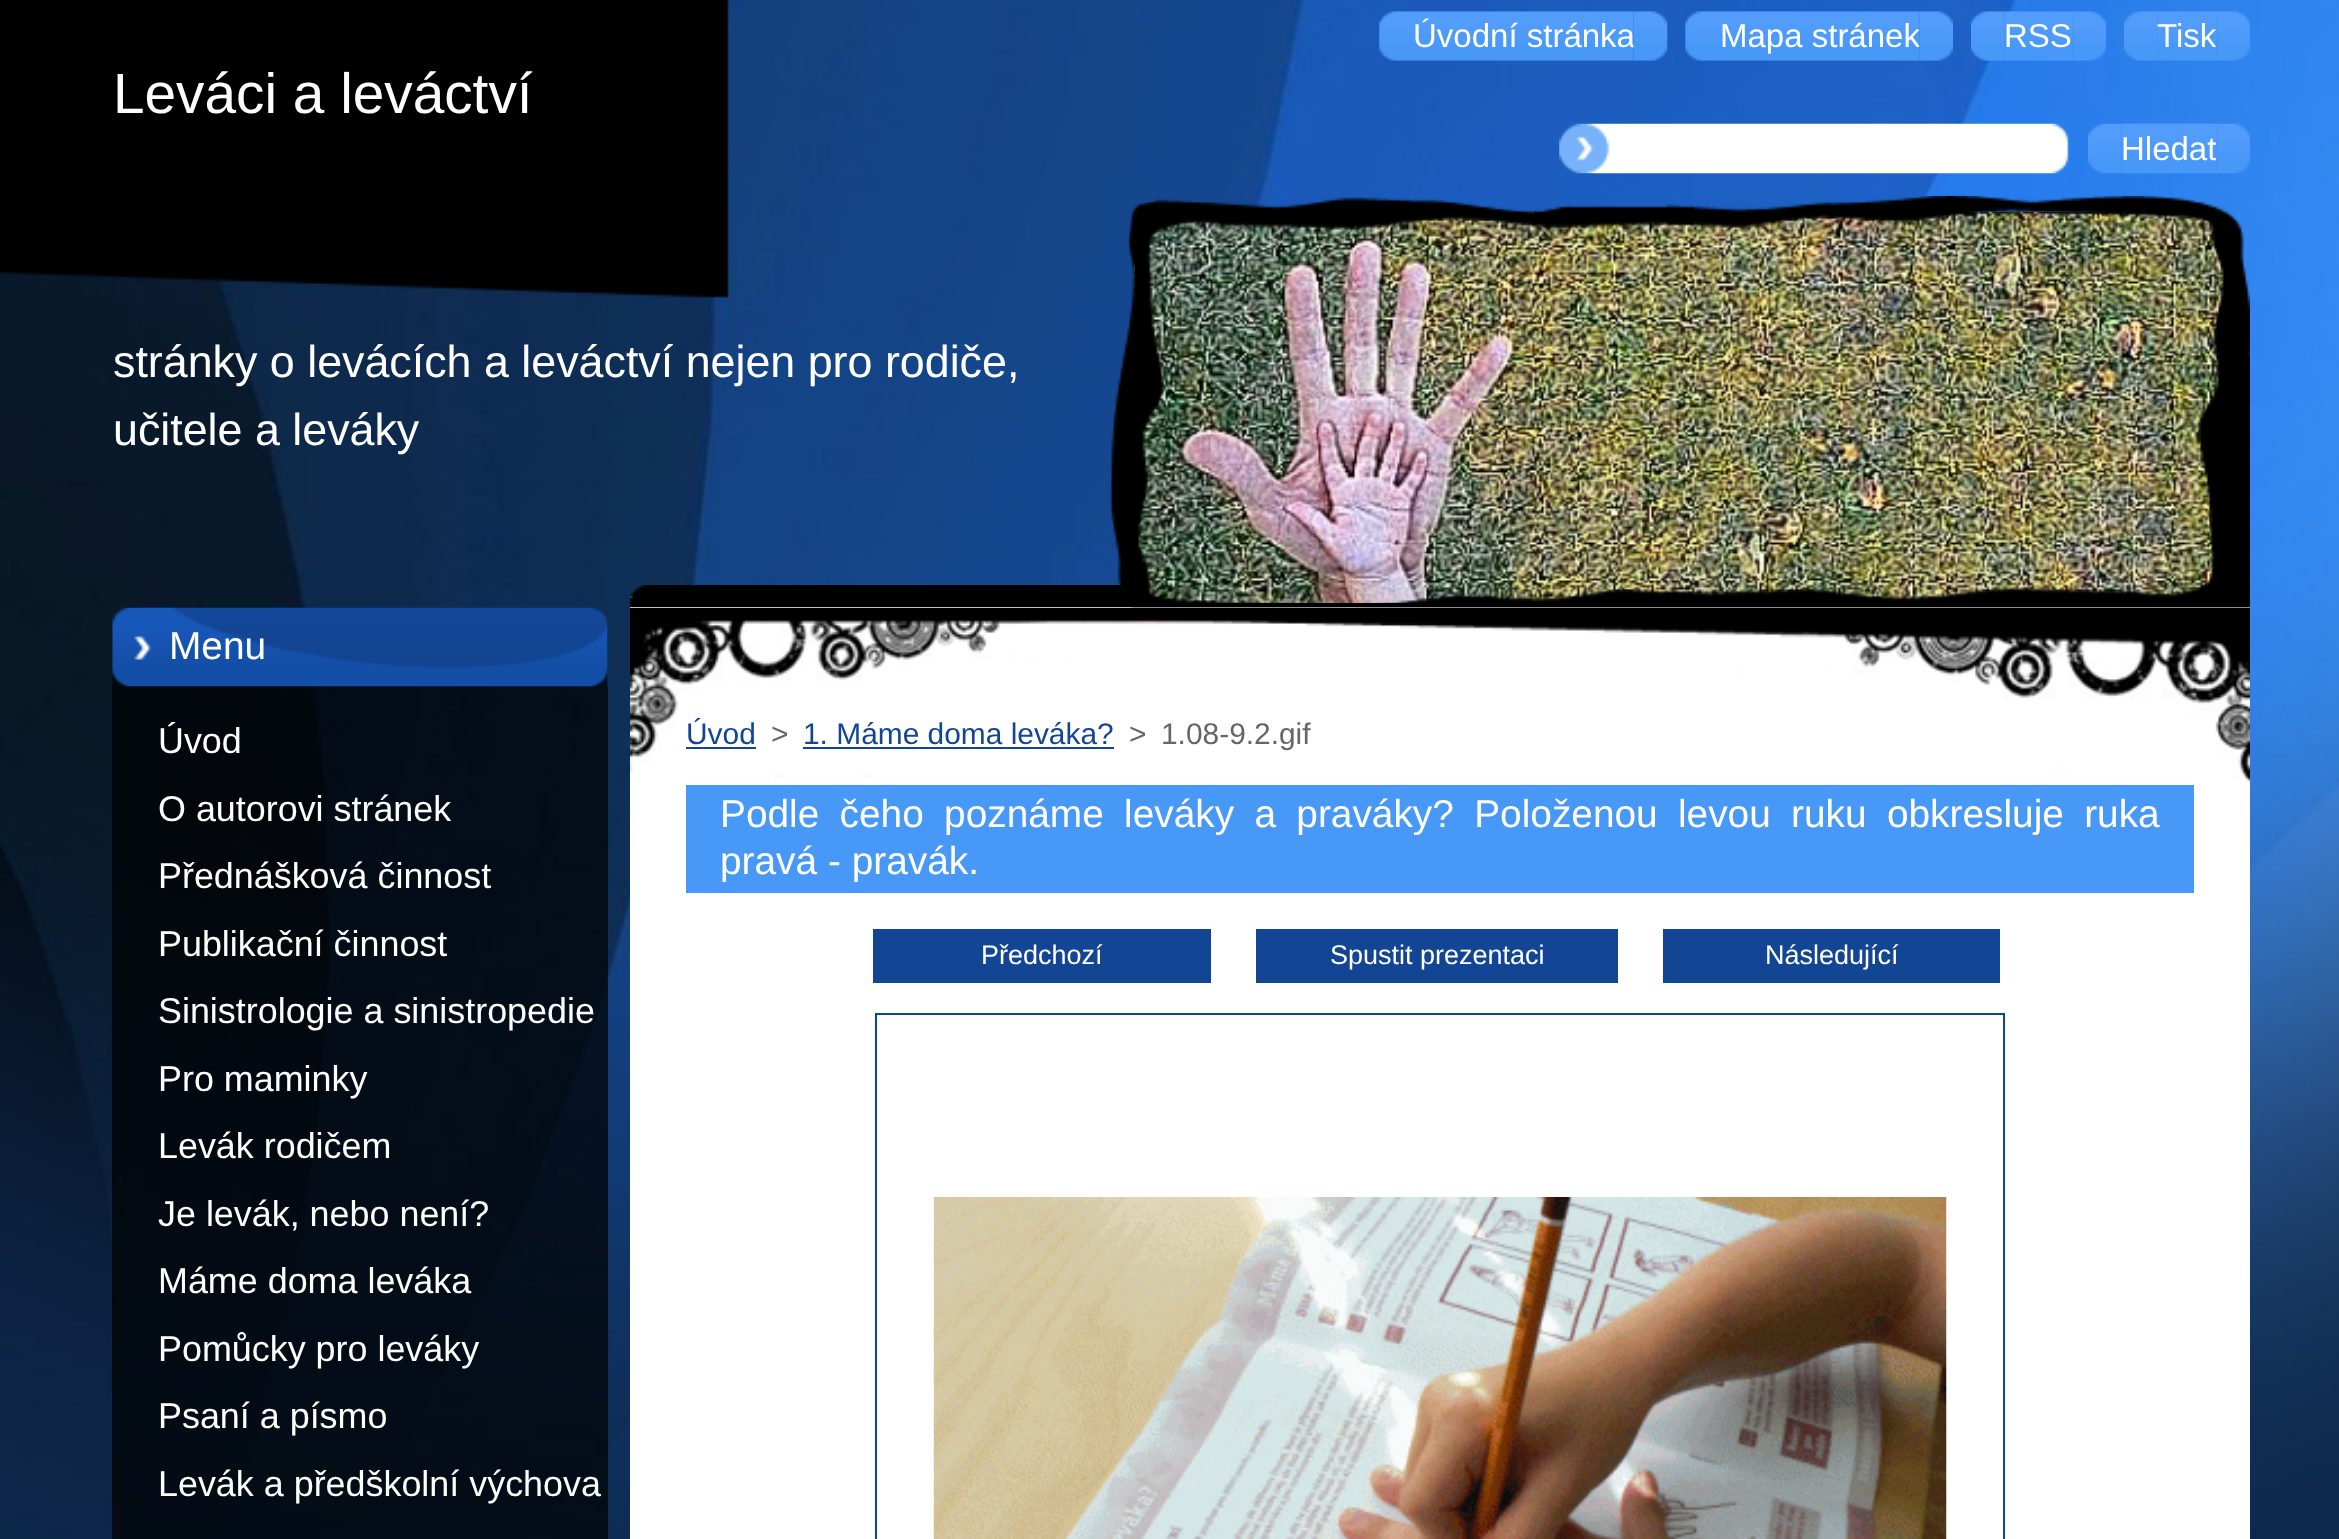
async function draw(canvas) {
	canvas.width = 2339;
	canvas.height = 1539;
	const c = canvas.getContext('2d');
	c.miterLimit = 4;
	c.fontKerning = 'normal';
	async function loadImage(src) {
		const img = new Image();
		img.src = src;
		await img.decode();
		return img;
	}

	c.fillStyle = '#fff';
	c.fillRect(0, 0, 2339, 1539);
	c.drawImage(await loadImage('img1.png'), 0, 0, 2339, 1539);
	c.drawImage(await loadImage('img2.png'), 0, 0, 729, 298);
	c.fillRect(630, 596, 4, 5);
	c.drawImage(await loadImage('img3.png'), 1379, 11, 34, 50);
	c.drawImage(await loadImage('img4.png'), 1413, 11, 221, 50);
	c.font = '33px Liberation Sans';
	c.fillText('Úvodní stránka', 1413, 47);
	c.drawImage(await loadImage('img5.png'), 1633, 11, 35, 50);
	c.drawImage(await loadImage('img6.png'), 1685, 11, 34, 50);
	c.drawImage(await loadImage('img7.png'), 1719, 11, 201, 50);
	c.fillText('Mapa stránek', 1720, 47);
	c.drawImage(await loadImage('img8.png'), 1919, 11, 34, 50);
	c.drawImage(await loadImage('img9.png'), 1971, 11, 34, 50);
	c.drawImage(await loadImage('img10.png'), 2004, 11, 69, 50);
	c.fillText('RSS', 2004, 47);
	c.drawImage(await loadImage('img11.png'), 2072, 11, 34, 50);
	c.drawImage(await loadImage('img12.png'), 2124, 11, 34, 50);
	c.drawImage(await loadImage('img13.png'), 2158, 11, 59, 50);
	c.fillText('Tisk', 2157, 47);
	c.drawImage(await loadImage('img14.png'), 2216, 11, 34, 50);
	c.font = '56.75px Liberation Sans';
	c.fillText('Leváci a leváctví', 113, 113);
	c.drawImage(await loadImage('img15.png'), 1559, 123, 510, 51);
	c.drawImage(await loadImage('img16.png'), 2088, 123, 34, 51);
	c.drawImage(await loadImage('img17.png'), 2122, 123, 95, 51);
	c.drawImage(await loadImage('img18.png'), 2122, 123, 94, 51);
	c.font = '33px Liberation Sans';
	c.fillText('Hledat', 2121, 160);
	c.drawImage(await loadImage('img19.png'), 2216, 123, 34, 51);
	c.drawImage(await loadImage('img20.png'), 630, 585, 795, 22);
	c.font = '44.8px Liberation Sans';
	c.fillText('stránky o levácích a leváctví nejen pro rodiče,', 113, 377);
	c.fillText('učitele a leváky', 113, 445);
	c.drawImage(await loadImage('img22.png'), 1134, 211, 1092, 392);
	c.fillRect(630, 607, 1620, 932);
	c.drawImage(await loadImage('img24.png'), 630, 607, 1620, 175);
	c.drawImage(await loadImage('img21.png'), 1109, 195, 1141, 413);
	c.fillStyle = '#000000b3';
	c.fillRect(112, 686, 496, 853);
	c.drawImage(await loadImage('img23.png'), 112, 607, 496, 80);
	c.font = '38.85px Liberation Sans';
	c.fillStyle = '#fff';
	c.fillText('Menu', 169, 659);
	c.font = '35.9px Liberation Sans';
	for (const [text, x, y] of [
		['Úvod', 158, 753],
		['O autorovi stránek', 158, 821],
		['Přednášková činnost', 158, 888],
		['Publikační činnost', 158, 956],
		['Sinistrologie a sinistropedie', 158, 1023],
		['Pro maminky', 158, 1091],
		['Levák rodičem', 158, 1158],
		['Je levák, nebo není?', 158, 1226],
		['Máme doma leváka', 158, 1293],
		['Pomůcky pro leváky', 158, 1361],
		['Psaní a písmo', 158, 1428],
		['Levák a předškolní výchova', 158, 1496],
	]) {
		c.fillText(text, x, y);
	}
	c.font = '29.9px Liberation Sans';
	c.fillStyle = '#124593';
	c.fillText('Úvod', 686, 744);
	c.fillRect(686, 747, 70, 2);
	c.fillStyle = '#666';
	c.fillText('>', 771, 744);
	c.fillStyle = '#124593';
	c.fillText('1. Máme doma leváka?', 803, 744);
	c.fillRect(803, 747, 311, 2);
	c.fillStyle = '#666';
	c.fillText('>', 1129, 744);
	c.fillText('1.08-9.2.gif', 1161, 744);
	c.fillStyle = '#4898f7';
	c.fillRect(686, 785, 1508, 108);
	c.wordSpacing = '9.5px';
	c.font = '38.85px Liberation Sans';
	c.fillStyle = '#fff';
	c.fillText('Podle čeho poznáme leváky a praváky? Položenou levou ruku obkresluje ruka', 720, 827);
	c.wordSpacing = '0px';
	c.fillText('pravá - pravák.', 720, 874);
	c.fillStyle = '#124593';
	c.fillRect(873, 929, 338, 54);
	c.font = '27px Liberation Sans';
	c.fillStyle = '#fff';
	c.fillText('Předchozí', 981, 964);
	c.fillStyle = '#124593';
	c.fillRect(1256, 929, 362, 54);
	c.fillStyle = '#fff';
	c.fillText('Spustit prezentaci', 1330, 964);
	c.fillStyle = '#124593';
	c.fillRect(1663, 929, 337, 54);
	c.fillStyle = '#fff';
	c.fillText('Následující', 1765, 964);
	c.strokeStyle = '#124593';
	c.lineWidth = 2;
	c.strokeRect(876, 1014, 1128, 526);
	c.drawImage(await loadImage('img25.png'), 933, 1197, 1014, 342);
}

draw(document.querySelector('canvas'));
